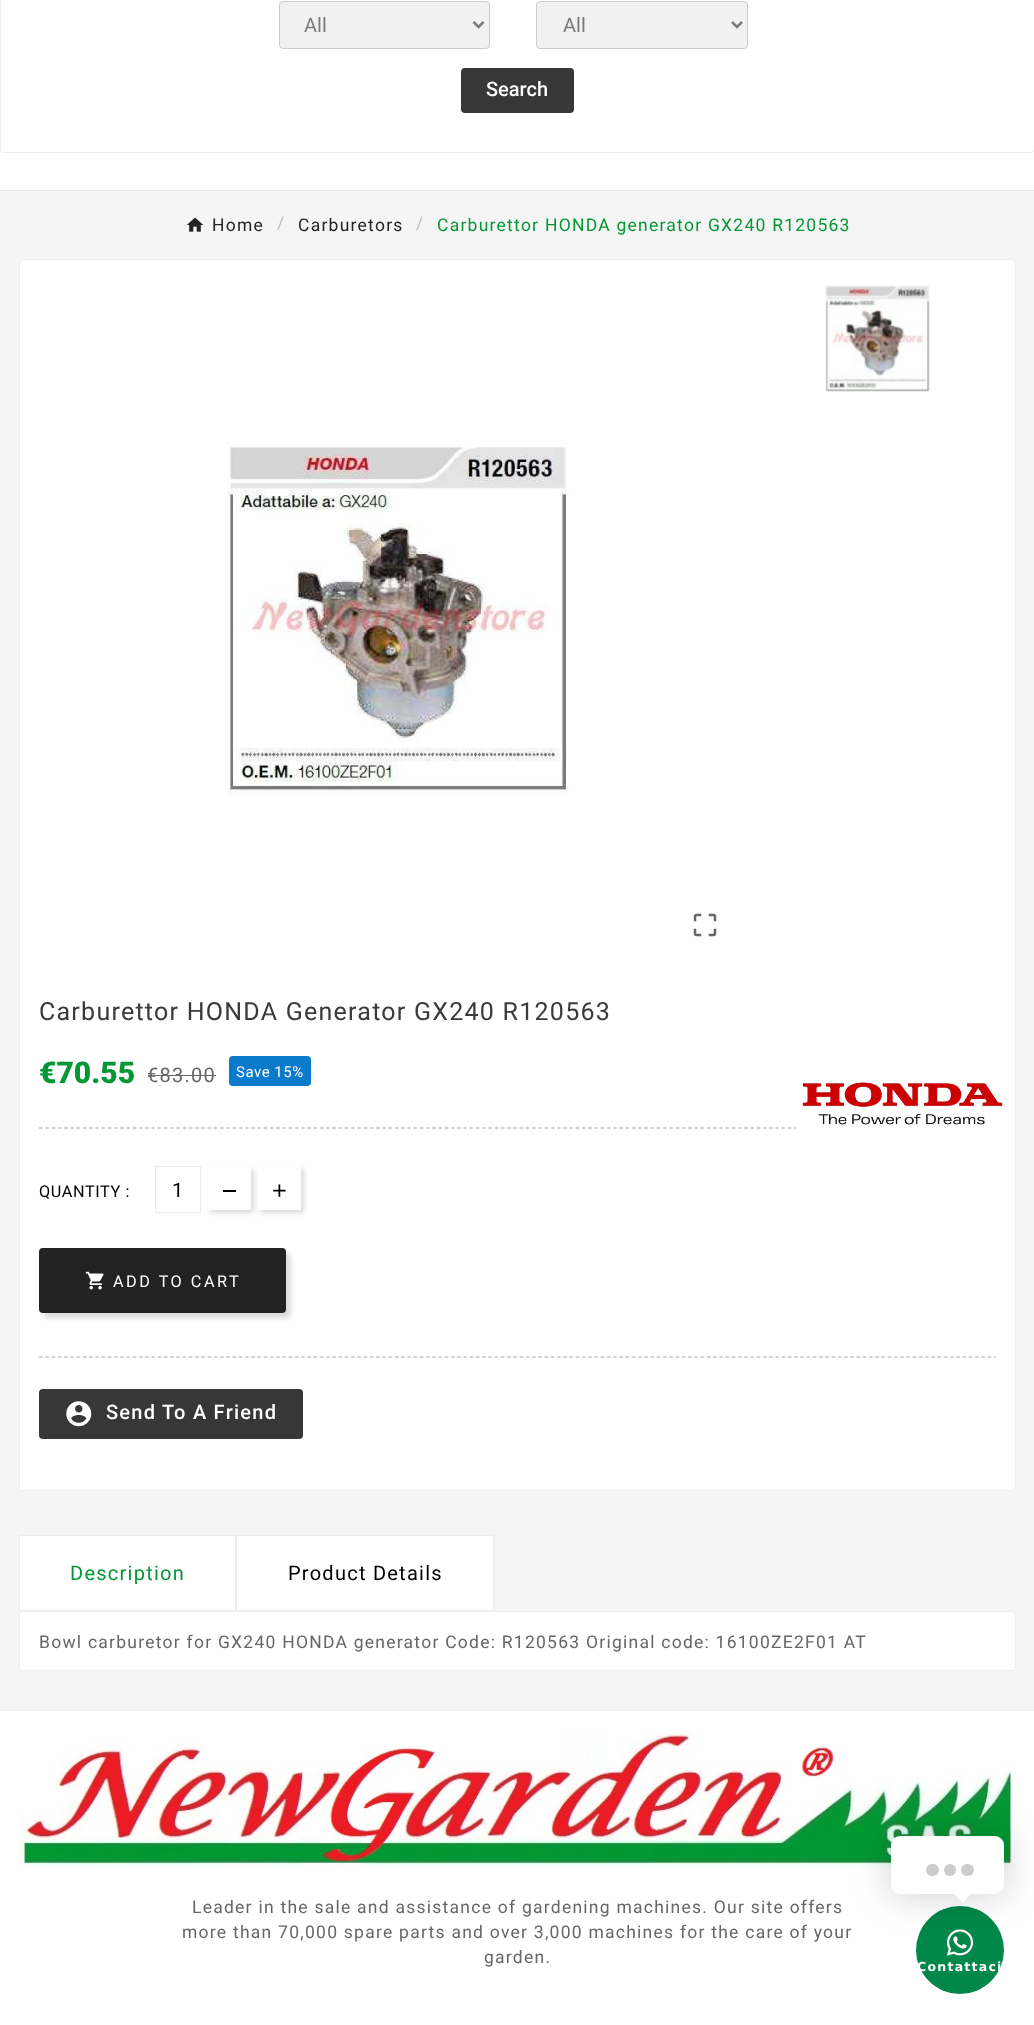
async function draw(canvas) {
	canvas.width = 1034;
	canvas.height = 2025;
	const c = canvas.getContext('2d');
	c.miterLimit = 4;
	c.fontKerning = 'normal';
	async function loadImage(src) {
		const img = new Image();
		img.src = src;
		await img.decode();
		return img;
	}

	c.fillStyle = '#f5f5f5';
	c.fillRect(0, 0, 1034, 2025);
	c.fillStyle = '#fff';
	c.fillRect(0, 0, 1034, 190);
	c.fillStyle = '#e5e5e5';
	c.fillRect(0, 190, 1034, 1);
	c.beginPath();
	c.roundRect(0.5, -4.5, 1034, 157, 3.5);
	c.strokeStyle = '#ededed';
	c.stroke();
	c.fillStyle = '#f1f1f1';
	c.beginPath();
	c.roundRect(279.5, 1.5, 210, 47, 3.5);
	c.fill();
	c.strokeStyle = '#ccc';
	c.stroke();
	c.beginPath();
	c.moveTo(473.5, 22);
	c.lineTo(478.5, 27);
	c.lineTo(483.5, 22);
	c.strokeStyle = '#7a7a7a';
	c.lineWidth = 2.5;
	c.stroke();
	c.font = '20px Roboto';
	c.fillStyle = '#7a7a7a';
	c.fillText('All', 304, 32);
	c.fillStyle = '#f1f1f1';
	c.beginPath();
	c.roundRect(536.5, 1.5, 211, 47, 3.5);
	c.fill();
	c.strokeStyle = '#ccc';
	c.lineWidth = 1;
	c.stroke();
	c.beginPath();
	c.moveTo(732, 22);
	c.lineTo(737, 27);
	c.lineTo(742, 22);
	c.strokeStyle = '#7a7a7a';
	c.lineWidth = 2.5;
	c.stroke();
	c.fillStyle = '#7a7a7a';
	c.fillText('All', 563, 32);
	c.fillStyle = '#373737';
	c.beginPath();
	c.roundRect(461, 68, 113, 45, 4);
	c.fill();
	c.font = '500 20px Roboto';
	c.fillStyle = '#fff';
	c.fillText('Search', 486, 96);
	c.drawImage(await loadImage('img1.png'), 186, 217, 18, 15);
	c.letterSpacing = '1.25px';
	c.font = '17.5px Roboto';
	c.fillStyle = '#232323';
	c.fillText('Home', 212, 231);
	c.fillStyle = '#bdbdbd';
	c.fillText('/', 277, 229);
	c.fillStyle = '#232323';
	c.fillText('Carburetors', 298, 231);
	c.fillStyle = '#bdbdbd';
	c.fillText('/', 416, 229);
	c.fillStyle = '#059735';
	c.fillText('Carburettor HONDA generator GX240 R120563', 437, 231);
	c.fillStyle = '#fff';
	c.beginPath();
	c.roundRect(19, 259, 997, 1232, 4);
	c.fill();
	c.beginPath();
	c.roundRect(19.5, 259.5, 996, 1231, 3.5);
	c.strokeStyle = '#00000012';
	c.lineWidth = 1;
	c.stroke();
	c.drawImage(await loadImage('img2.png'), 824, 285, 106, 107);
	c.drawImage(await loadImage('img3.png'), 227, 442, 342, 353);
	c.drawImage(await loadImage('img4.png'), 693, 913, 24, 24);
	c.font = '25px Roboto';
	c.fillStyle = '#3a3a3a';
	c.fillText('Carburettor HONDA Generator GX240 R120563', 39, 1020);
	c.beginPath();
	c.moveTo(39, 1128);
	c.lineTo(996, 1128);
	c.strokeStyle = '#a7a7a7';
	c.lineWidth = 1.2;
	c.setLineDash([3.75, 2.49]);
	c.stroke();
	c.drawImage(await loadImage('img5.png'), 796, 1082, 208, 47);
	c.letterSpacing = '0px';
	c.font = '900 30px Roboto';
	c.fillStyle = '#059735';
	c.fillText('€70.55', 39, 1083);
	c.letterSpacing = '1.25px';
	c.font = '20px Roboto';
	c.fillStyle = '#666';
	c.fillText('€83.00', 147, 1082);
	c.fillRect(148, 1075, 68, 1);
	c.fillStyle = '#0b7acb';
	c.beginPath();
	c.roundRect(229, 1056, 82, 30, 4);
	c.fill();
	c.letterSpacing = '0.5px';
	c.font = '15px Roboto';
	c.fillStyle = '#fff';
	c.fillText('Save 15%', 236, 1077);
	c.letterSpacing = '0.6px';
	c.font = '16.25px Roboto';
	c.fillStyle = '#000';
	c.fillText('QUANTITY :', 39, 1197);
	c.strokeStyle = '#ededed';
	c.lineWidth = 1;
	c.setLineDash([]);
	c.strokeRect(155.5, 1166.5, 45, 46);
	c.letterSpacing = '0px';
	c.font = '20px Roboto';
	c.fillText('1', 172, 1197);
	c.save();
	c.beginPath();
	c.moveTo(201, 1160);
	c.lineTo(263, 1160);
	c.lineTo(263, 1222);
	c.lineTo(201, 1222);
	c.closePath();
	c.moveTo(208, 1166);
	c.lineTo(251, 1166);
	c.lineTo(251, 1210);
	c.lineTo(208, 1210);
	c.closePath();
	c.clip('evenodd');
	c.fillStyle = '#00000024';
	c.filter = 'blur(2.5px)';
	c.beginPath();
	c.rect(210, 1169, 44, 44);
	c.fill();
	c.filter = 'none';
	c.restore();
	c.fillRect(223, 1190, 13, 2);
	c.save();
	c.beginPath();
	c.moveTo(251, 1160);
	c.lineTo(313, 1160);
	c.lineTo(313, 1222);
	c.lineTo(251, 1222);
	c.closePath();
	c.moveTo(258, 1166);
	c.lineTo(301, 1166);
	c.lineTo(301, 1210);
	c.lineTo(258, 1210);
	c.closePath();
	c.clip('evenodd');
	c.fillStyle = '#00000024';
	c.filter = 'blur(2.5px)';
	c.beginPath();
	c.rect(260, 1169, 44, 44);
	c.fill();
	c.filter = 'none';
	c.restore();
	c.drawImage(await loadImage('img6.png'), 273, 1184, 13, 13);
	c.fillStyle = '#00000024';
	c.filter = 'blur(2.5px)';
	c.beginPath();
	c.roundRect(44, 1253, 247, 65, 4);
	c.fill();
	c.filter = 'none';
	c.fillStyle = '#222';
	c.beginPath();
	c.roundRect(39, 1248, 247, 65, 4);
	c.fill();
	c.drawImage(await loadImage('img7.png'), 85, 1271, 19, 19);
	c.letterSpacing = '2.5px';
	c.font = '16.25px Roboto';
	c.fillStyle = '#fff';
	c.fillText('ADD TO CART', 113, 1287);
	c.beginPath();
	c.moveTo(39, 1357);
	c.lineTo(996, 1357);
	c.strokeStyle = '#a7a7a7';
	c.lineWidth = 1.2;
	c.setLineDash([3.75, 2.49]);
	c.stroke();
	c.fillStyle = '#373737';
	c.beginPath();
	c.roundRect(39, 1389, 264, 50, 4);
	c.fill();
	c.drawImage(await loadImage('img8.png'), 66, 1401, 26, 26);
	c.letterSpacing = '1.25px';
	c.font = '500 20px Roboto';
	c.fillStyle = '#fff';
	c.fillText('Send To A Friend', 106, 1419);
	c.beginPath();
	c.rect(19.5, 1535.5, 216, 75);
	c.fill();
	c.strokeStyle = '#ededed';
	c.lineWidth = 1;
	c.setLineDash([]);
	c.stroke();
	c.font = '20px Roboto';
	c.fillStyle = '#059735';
	c.fillText('Description', 70, 1580);
	c.fillStyle = '#fff';
	c.beginPath();
	c.rect(236.5, 1535.5, 257, 75);
	c.fill();
	c.stroke();
	c.fillStyle = '#000';
	c.fillText('Product Details', 288, 1580);
	c.fillStyle = '#fff';
	c.beginPath();
	c.roundRect(19, 1611, 997, 60, 4);
	c.fill();
	c.beginPath();
	c.roundRect(19.5, 1611.5, 996, 59, 3.5);
	c.strokeStyle = '#00000012';
	c.stroke();
	c.font = '17.5px Roboto';
	c.fillStyle = '#666';
	c.fillText('Bowl carburetor for GX240 HONDA generator Code: R120563 Original code: 16100ZE2F01 AT', 39, 1648);
	c.fillStyle = '#fff';
	c.fillRect(0, 1711, 1034, 314);
	c.fillStyle = '#ededed';
	c.fillRect(0, 1710, 1034, 1);
	c.drawImage(await loadImage('img9.png'), 19, 1730, 995, 139);
	c.fillStyle = '#666';
	for (const [text, x, y] of [
		['Leader in the sale and assistance of gardening machines. Our site offers', 192, 1913],
		['more than 70,000 spare parts and over 3,000 machines for the care of your', 182, 1938],
		['garden.', 484, 1963],
	]) {
		c.fillText(text, x, y);
	}
	c.fillStyle = '#008749';
	c.beginPath();
	c.arc(960, 1950, 44, 0, 2 * Math.PI);
	c.fill();
	c.drawImage(await loadImage('img10.png'), 946, 1929, 28, 27);
	c.fillStyle = '#00000033';
	c.filter = 'blur(19px)';
	c.beginPath();
	c.roundRect(891, 1836, 113, 58, 9);
	c.fill();
	c.filter = 'none';
	c.fillStyle = '#fff';
	c.beginPath();
	c.roundRect(891, 1836, 113, 58, 9);
	c.fill();
	c.fillStyle = '#ccc';
	c.beginPath();
	c.roundRect(926, 1864, 13, 12, 6);
	c.fill();
	c.beginPath();
	c.arc(950, 1870, 6, 0, 2 * Math.PI);
	c.fill();
	c.beginPath();
	c.roundRect(961, 1864, 13, 12, 6);
	c.fill();
	c.fillStyle = '#fff';
	c.beginPath();
	c.moveTo(952.5, 1892.5);
	c.lineTo(972.5, 1892.5);
	c.lineTo(962.5, 1902.5);
	c.closePath();
	c.fill();
	c.font = 'bold 12.5px DejaVu Sans';
	c.fillText('Contattaci', 917, 1971);
}

draw(document.querySelector('canvas'));
